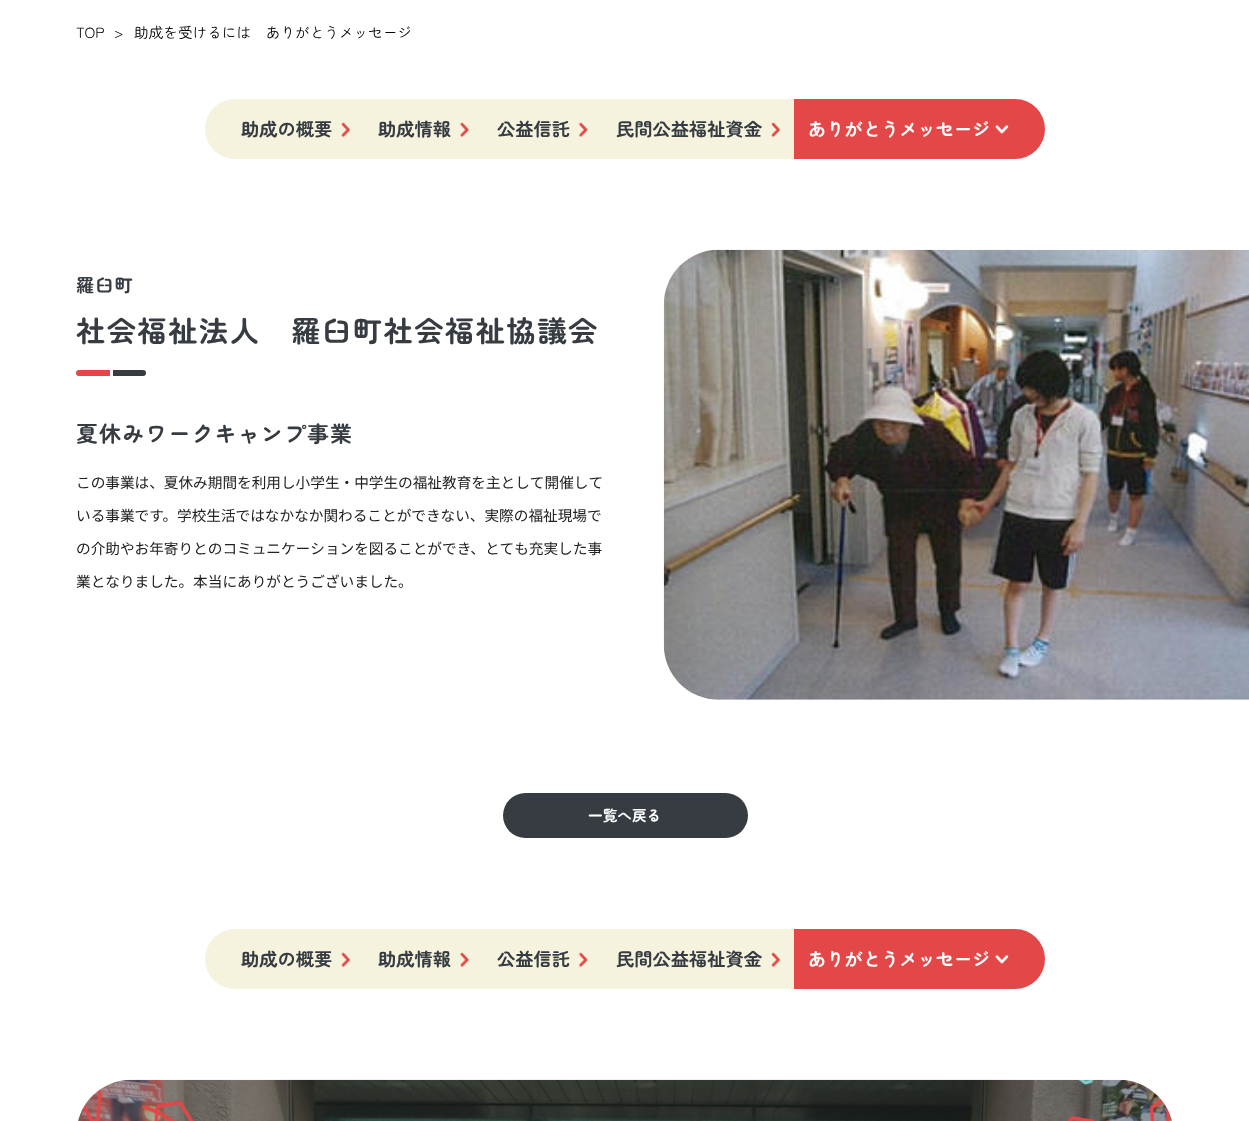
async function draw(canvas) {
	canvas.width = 1249;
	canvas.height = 1121;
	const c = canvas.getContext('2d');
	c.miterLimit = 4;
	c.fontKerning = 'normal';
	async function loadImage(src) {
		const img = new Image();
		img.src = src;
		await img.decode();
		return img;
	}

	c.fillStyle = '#fff';
	c.fillRect(0, 0, 1249, 1121);
	c.font = '14.65px Zen Maru Gothic';
	c.fillStyle = '#000';
	for (const [text, x, y] of [
		['TOP', 76, 38],
		['>', 114, 38],
		['助成を受けるには　ありがとうメッセージ', 134, 38],
	]) {
		c.fillText(text, x, y);
	}
	c.fillStyle = '#f5f3de';
	c.beginPath();
	c.roundRect(205, 99, 160, 60, [30, 0, 0, 30]);
	c.fill();
	c.drawImage(await loadImage('img1.png'), 341, 122, 9, 16);
	c.font = 'bold 18.25px Zen Maru Gothic';
	c.fillStyle = '#363c41';
	c.fillText('助成の概要', 241, 136);
	c.fillStyle = '#f5f3de';
	c.fillRect(365, 99, 429, 60);
	c.drawImage(await loadImage('img2.png'), 460, 122, 9, 16);
	c.fillStyle = '#363c41';
	c.fillText('助成情報', 378, 136);
	c.drawImage(await loadImage('img3.png'), 578, 122, 10, 16);
	c.fillText('公益信託', 497, 136);
	c.drawImage(await loadImage('img1.png'), 771, 122, 9, 16);
	c.fillText('民間公益福祉資金', 616, 136);
	c.fillStyle = '#e34747';
	c.beginPath();
	c.roundRect(794, 99, 251, 60, [0, 30, 30, 0]);
	c.fill();
	c.drawImage(await loadImage('img4.png'), 995, 124, 14, 10);
	c.fillStyle = '#fff';
	c.fillText('ありがとうメッセージ', 808, 136);
	c.letterSpacing = '1px';
	c.fillStyle = '#363c41';
	c.fillText('羅臼町', 76, 292);
	c.letterSpacing = '1.5px';
	c.font = 'bold 29.25px Zen Maru Gothic';
	c.fillText('社会福祉法人　羅臼町社会福祉協議会', 76, 342);
	c.fillStyle = '#e34747';
	c.beginPath();
	c.roundRect(76, 370, 35, 6, [3, 0, 0, 3]);
	c.fill();
	c.fillStyle = '#363c41';
	c.beginPath();
	c.roundRect(111, 370, 35, 6, [0, 3, 3, 0]);
	c.fill();
	c.fillStyle = '#fff';
	c.fillRect(110, 370, 3, 6);
	c.letterSpacing = '1.1px';
	c.font = 'bold 22px Zen Maru Gothic';
	c.fillStyle = '#363c41';
	c.fillText('夏休みワークキャンプ事業', 76, 442);
	c.letterSpacing = '0px';
	c.font = '14.65px Noto Sans JP';
	c.fillStyle = '#212121';
	for (const [text, x, y] of [
		['この事業は、夏休み期間を利用し小学生・中学生の福祉教育を主として開催して', 76, 488],
		['いる事業です。学校生活ではなかなか関わることができない、実際の福祉現場で', 76, 521],
		['の介助やお年寄りとのコミュニケーションを図ることができ、とても充実した事', 76, 554],
		['業となりました。本当にありがとうございました。', 76, 587],
	]) {
		c.fillText(text, x, y);
	}
	c.drawImage(await loadImage('img5.png'), 663, 249, 586, 451);
	c.fillStyle = '#363c41';
	c.beginPath();
	c.roundRect(503, 793, 245, 45, 22.5);
	c.fill();
	c.font = 'bold 14.65px Zen Maru Gothic';
	c.fillStyle = '#fff';
	c.fillText('一覧へ戻る', 588, 821);
	c.fillStyle = '#f5f3de';
	c.beginPath();
	c.roundRect(205, 929, 160, 60, [30, 0, 0, 30]);
	c.fill();
	c.drawImage(await loadImage('img1.png'), 341, 952, 9, 16);
	c.font = 'bold 18.25px Zen Maru Gothic';
	c.fillStyle = '#363c41';
	c.fillText('助成の概要', 241, 966);
	c.fillStyle = '#f5f3de';
	c.fillRect(365, 929, 429, 60);
	c.drawImage(await loadImage('img2.png'), 460, 952, 9, 16);
	c.fillStyle = '#363c41';
	c.fillText('助成情報', 378, 966);
	c.drawImage(await loadImage('img3.png'), 578, 952, 10, 16);
	c.fillText('公益信託', 497, 966);
	c.drawImage(await loadImage('img1.png'), 771, 952, 9, 16);
	c.fillText('民間公益福祉資金', 616, 966);
	c.fillStyle = '#e34747';
	c.beginPath();
	c.roundRect(794, 929, 251, 60, [0, 30, 30, 0]);
	c.fill();
	c.drawImage(await loadImage('img4.png'), 995, 954, 14, 10);
	c.fillStyle = '#fff';
	c.fillText('ありがとうメッセージ', 808, 966);
	c.drawImage(await loadImage('img6.png'), 78, 1079, 1094, 42);
}

draw(document.querySelector('canvas'));
